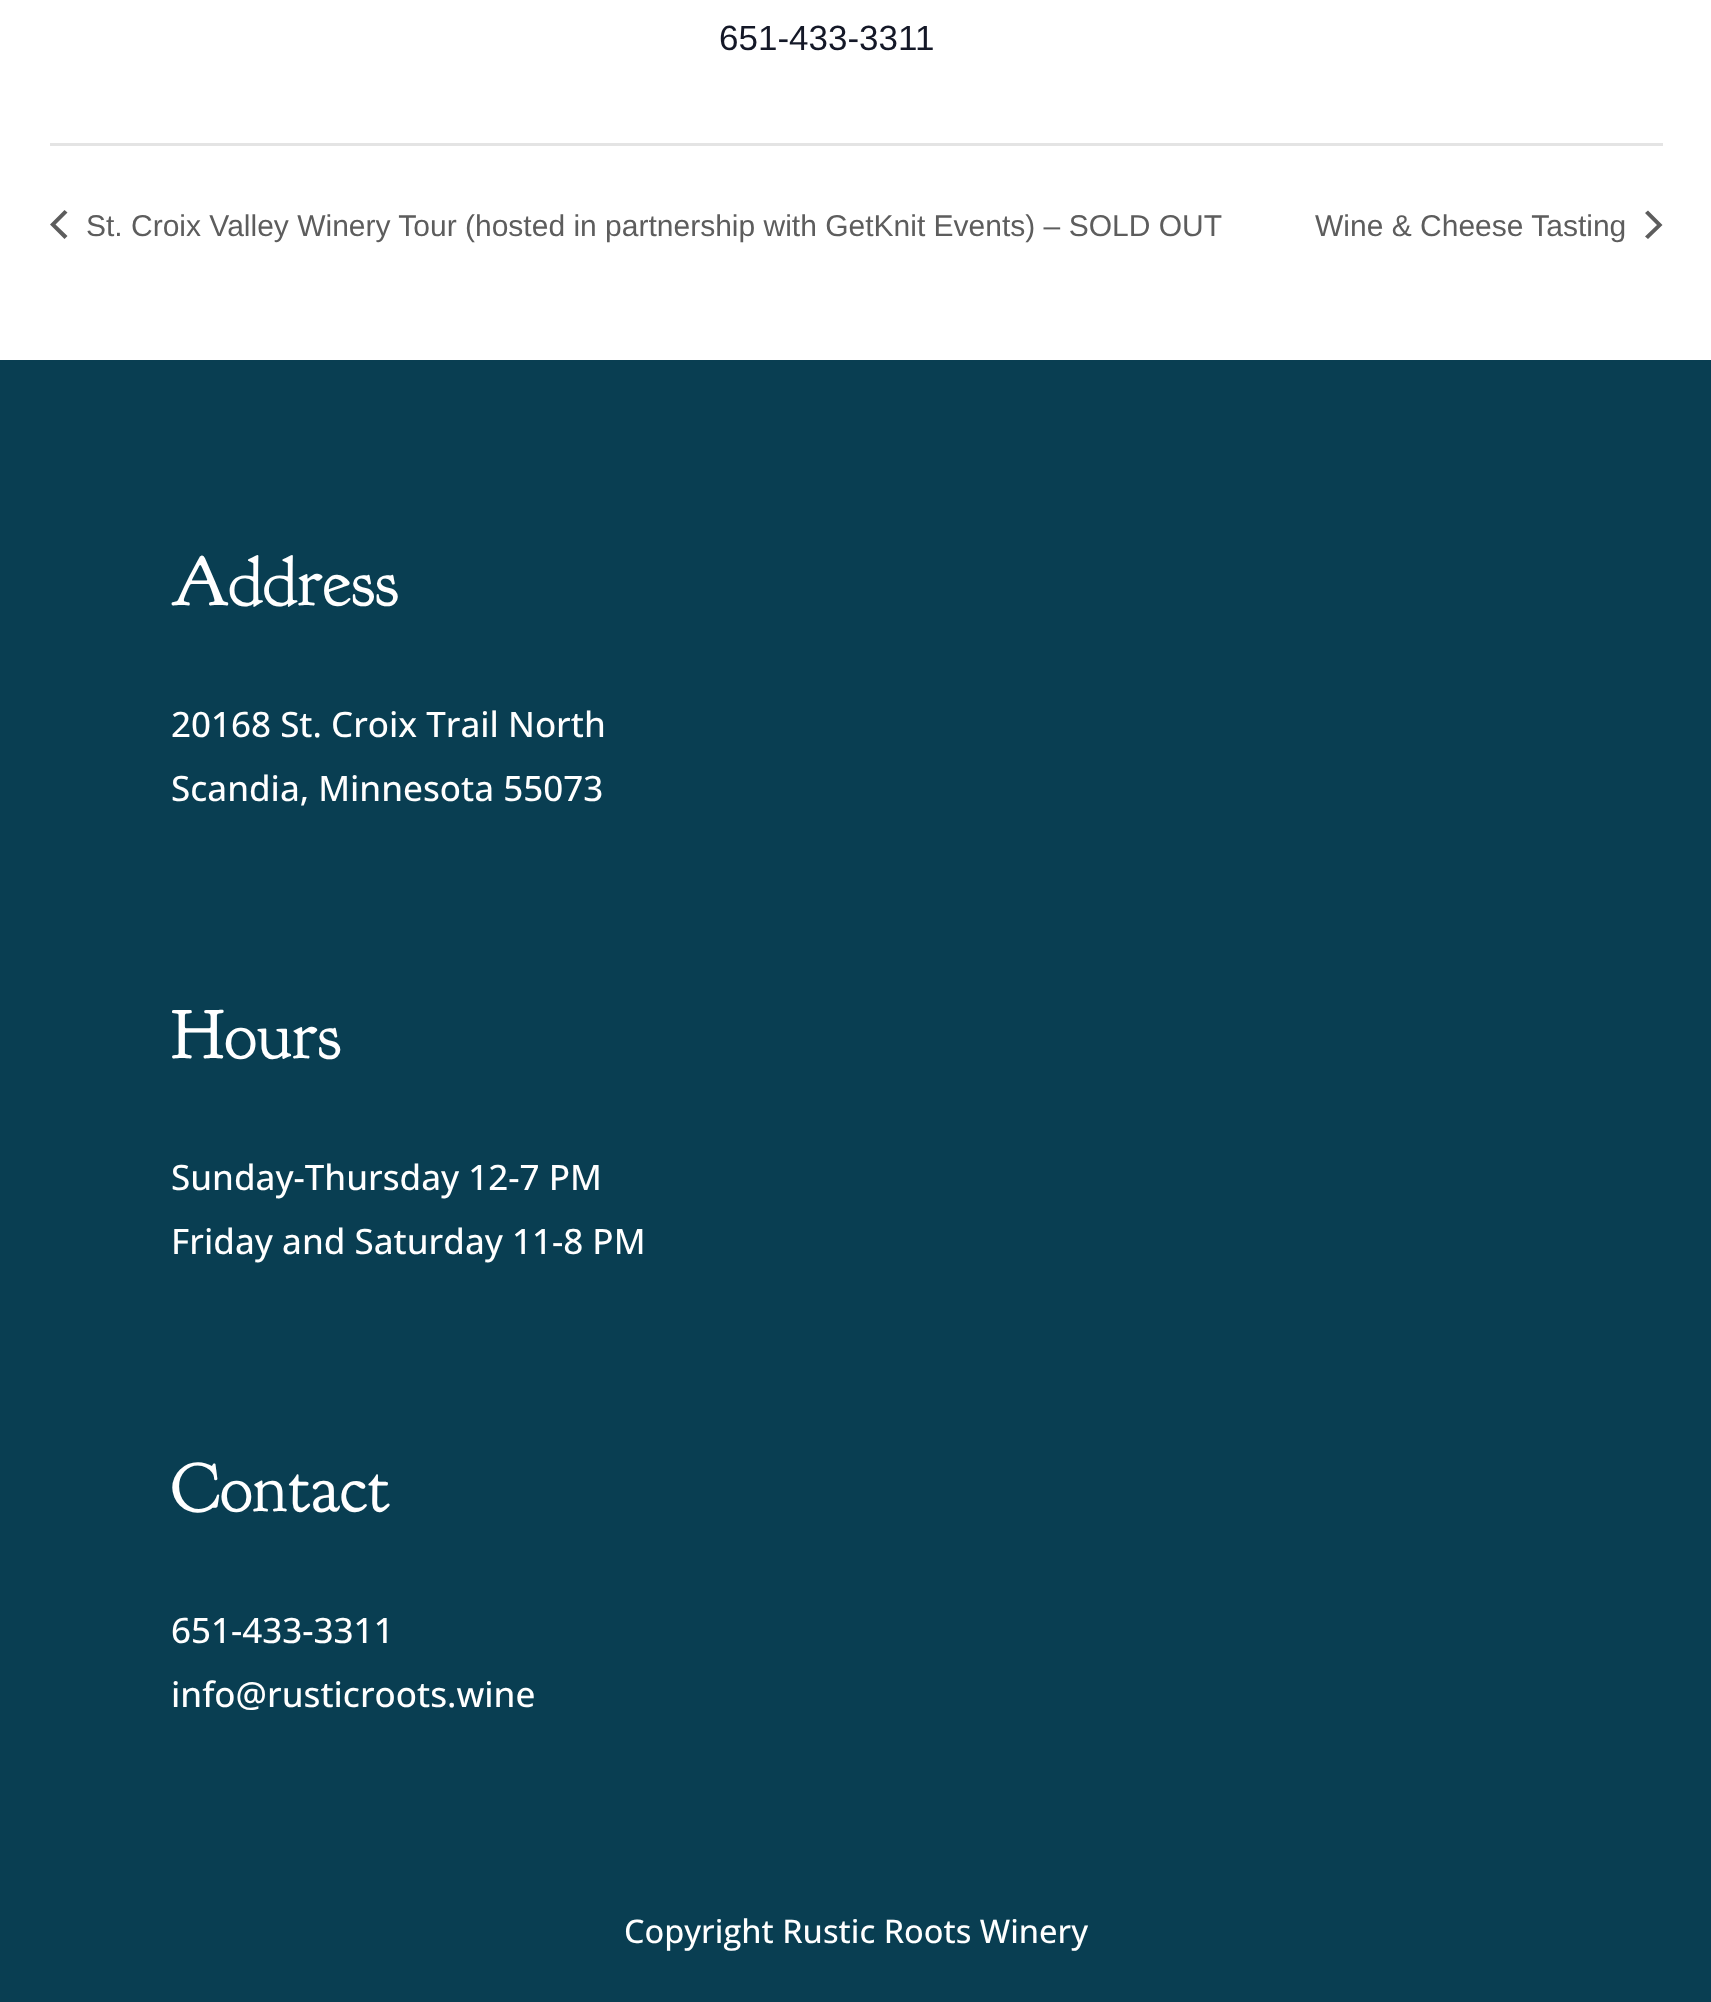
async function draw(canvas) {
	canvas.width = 1711;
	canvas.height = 2002;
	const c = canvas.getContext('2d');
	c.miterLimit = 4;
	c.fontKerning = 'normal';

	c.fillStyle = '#093e52';
	c.fillRect(0, 0, 1711, 2002);
	c.fillStyle = '#fff';
	c.fillRect(0, 0, 1711, 360);
	c.font = '35px Liberation Sans';
	c.fillStyle = '#141827';
	c.fillText('651-433-3311', 719, 50);
	c.fillStyle = '#e4e4e4';
	c.fillRect(50, 143, 1613, 3);
	c.fillStyle = '#5d5d5d';
	c.beginPath();
	c.moveTo(67.5, 236);
	c.lineTo(64.5, 239);
	c.lineTo(50, 224.5);
	c.lineTo(64.5, 210);
	c.lineTo(67.5, 212.5);
	c.lineTo(55.5, 224.5);
	c.closePath();
	c.fill();
	c.font = '30px Liberation Sans';
	c.fillText('St. Croix Valley Winery Tour (hosted in partnership with GetKnit Events) – SOLD OUT', 86, 236);
	c.fillText('Wine & Cheese Tasting', 1315, 236);
	c.beginPath();
	c.moveTo(1645, 213);
	c.lineTo(1648, 210.5);
	c.lineTo(1662.5, 225);
	c.lineTo(1648, 239);
	c.lineTo(1645, 236.5);
	c.lineTo(1657, 225);
	c.closePath();
	c.fill();
	c.font = '70px "Goudy Bookletter 1911"';
	c.fillStyle = '#fff';
	c.fillText('Address', 171, 605);
	c.font = '500 35px Open Sans';
	c.fillText('20168 St. Croix Trail North', 171, 737);
	c.fillText('Scandia, Minnesota 55073', 171, 801);
	c.font = '70px "Goudy Bookletter 1911"';
	c.fillText('Hours', 171, 1058);
	c.font = '500 35px Open Sans';
	c.fillText('Sunday-Thursday 12-7 PM', 171, 1190);
	c.fillText('Friday and Saturday 11-8 PM', 171, 1254);
	c.font = '70px "Goudy Bookletter 1911"';
	c.fillText('Contact', 171, 1511);
	c.font = '500 35px Open Sans';
	c.fillText('651-433-3311', 171, 1643);
	c.fillText('info@rusticroots.wine', 171, 1707);
	c.font = '500 32.5px Open Sans';
	c.fillText('Copyright Rustic Roots Winery', 624, 1943);
}

draw(document.querySelector('canvas'));
